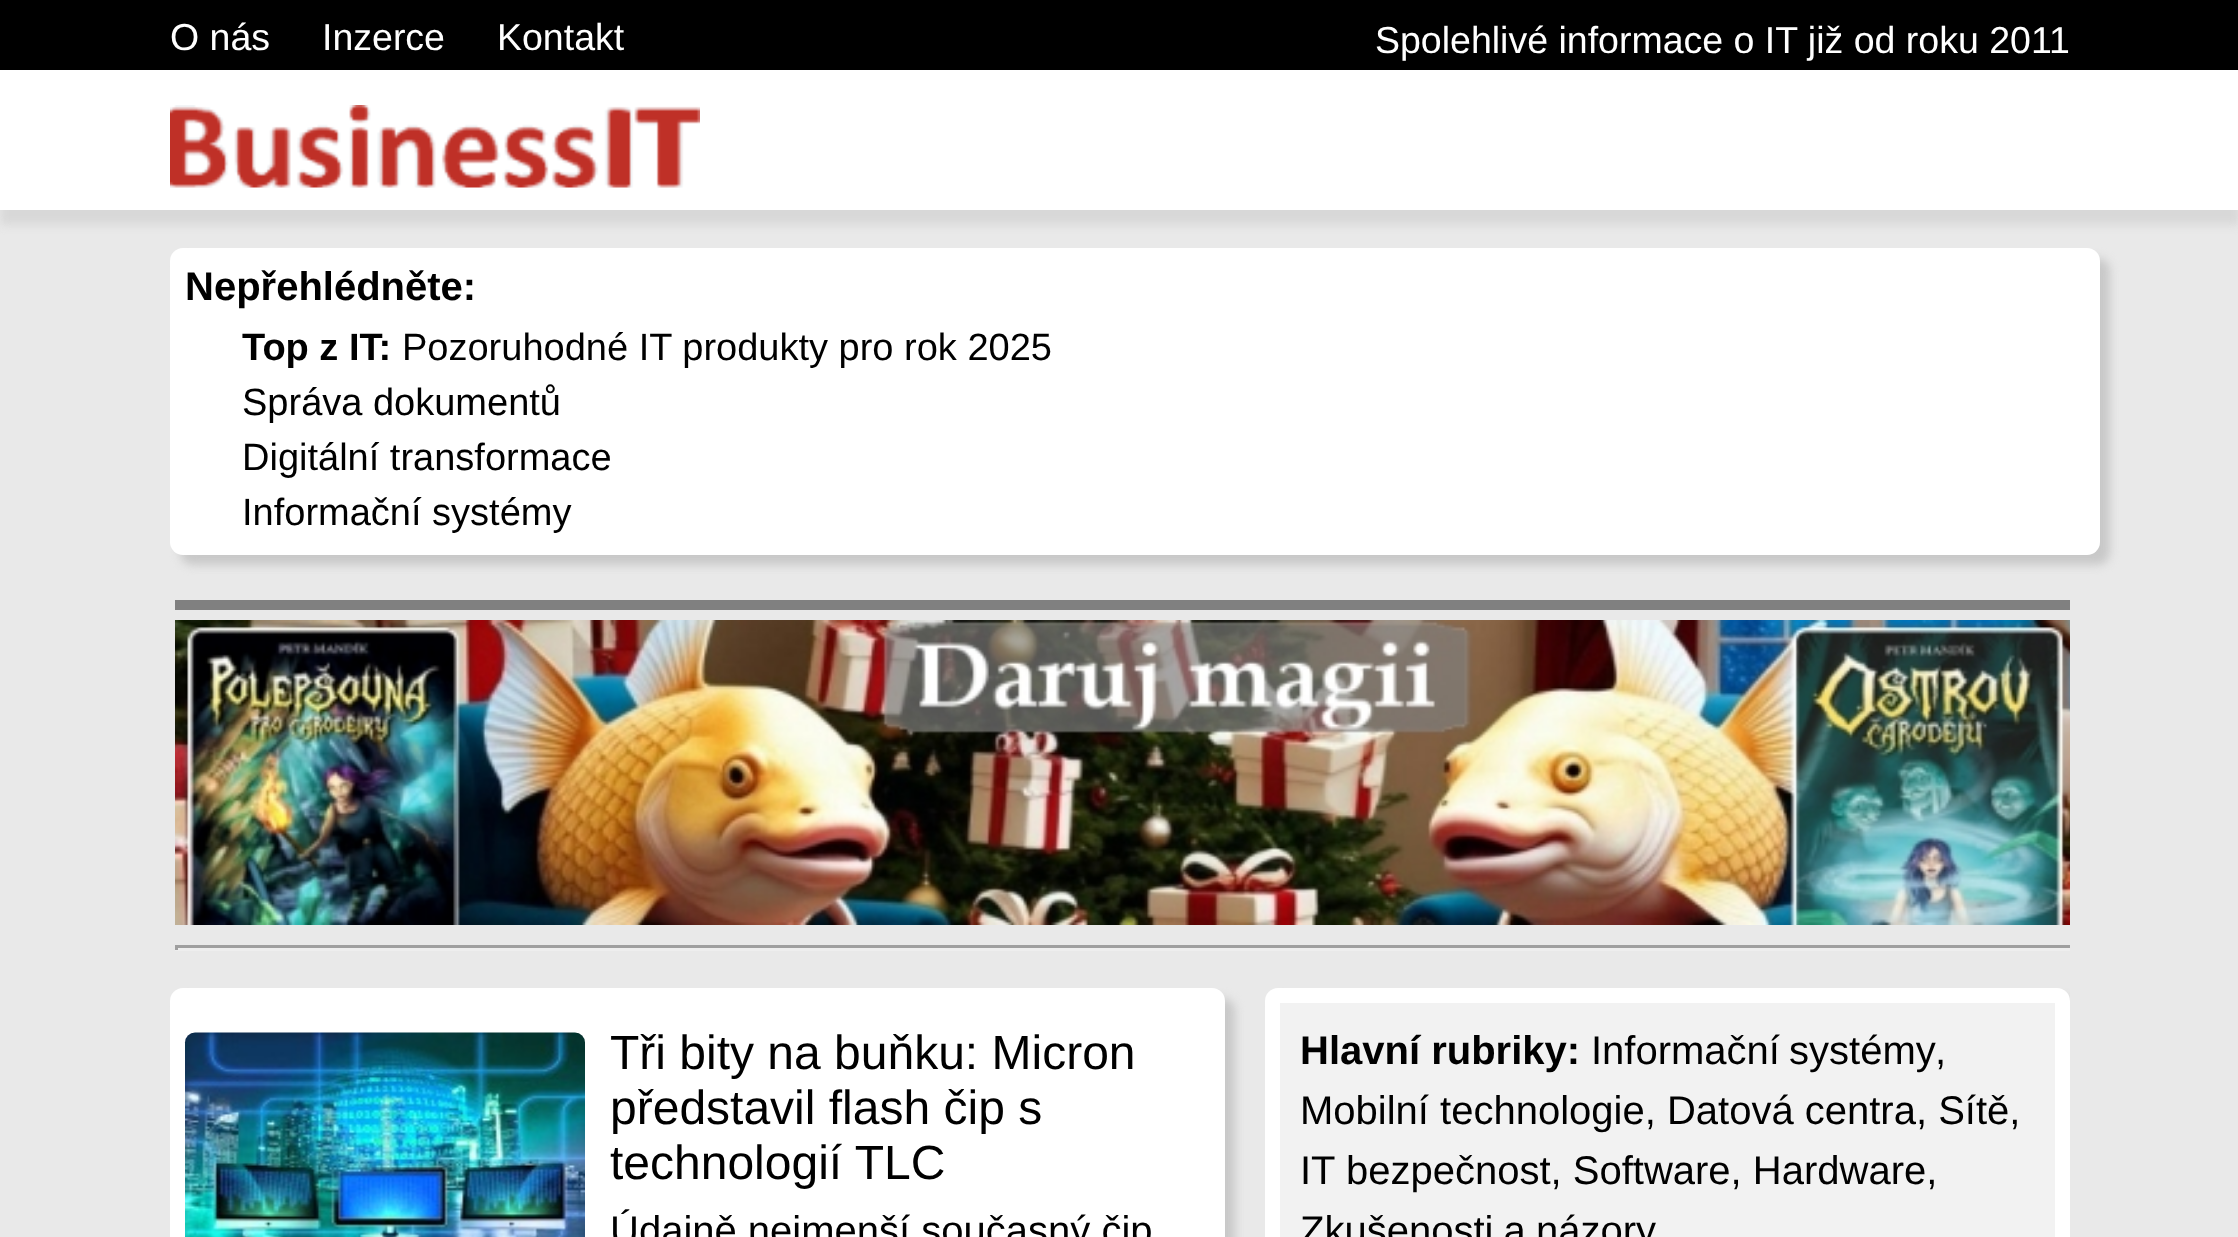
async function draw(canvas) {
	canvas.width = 2238;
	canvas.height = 1237;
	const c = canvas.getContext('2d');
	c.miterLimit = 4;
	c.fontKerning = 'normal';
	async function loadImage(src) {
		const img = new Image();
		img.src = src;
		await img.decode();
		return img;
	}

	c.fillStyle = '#e9e9e9';
	c.fillRect(0, 0, 2238, 1237);
	c.fillStyle = '#d8d8d8';
	c.filter = 'blur(5px)';
	c.beginPath();
	c.rect(0, 85, 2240, 140);
	c.fill();
	c.filter = 'none';
	c.fillStyle = '#000';
	c.fillRect(0, 0, 2238, 70);
	c.font = '37.5px Liberation Sans';
	c.fillStyle = '#fff';
	for (const [text, x, y] of [
		['O nás', 170, 50],
		['Inzerce', 322, 50],
		['Kontakt', 497, 50],
		['Spolehlivé informace o IT již od roku 2011', 1375, 53],
	]) {
		c.fillText(text, x, y);
	}
	c.fillRect(0, 70, 2238, 140);
	c.drawImage(await loadImage('img1.png'), 170, 105, 530, 83);
	c.fillStyle = '#c8c8c8';
	c.filter = 'blur(5px)';
	c.beginPath();
	c.roundRect(180, 258, 1930, 307, 13);
	c.fill();
	c.filter = 'none';
	c.fillStyle = '#fff';
	c.beginPath();
	c.roundRect(170, 248, 1930, 307, 13);
	c.fill();
	c.font = 'bold 40px Liberation Sans';
	c.fillStyle = '#000';
	c.fillText('Nepřehlédněte:', 185, 300);
	c.font = 'bold 38px Liberation Sans';
	c.fillText('Top z IT:', 242, 360);
	c.font = '38px Liberation Sans';
	for (const [text, x, y] of [
		['Pozoruhodné IT produkty pro rok 2025', 402, 360],
		['Správa dokumentů', 242, 415],
		['Digitální transformace', 242, 470],
		['Informační systémy', 242, 525],
	]) {
		c.fillText(text, x, y);
	}
	c.fillStyle = '#808080';
	c.fillRect(175, 600, 1895, 10);
	c.drawImage(await loadImage('img2.png'), 175, 620, 1895, 305);
	for (const [x, y, w, h, color] of [
		[175, 945, 1895, 3, '#9f9f9f'],
		[175, 948, 1895, 3, '#eee'],
		[175, 945, 3, 5, '#9f9f9f'],
	]) {
		c.fillStyle = color;
		c.fillRect(x, y, w, h);
	}
	c.fillStyle = '#c8c8c8';
	c.filter = 'blur(5px)';
	c.beginPath();
	c.roundRect(180, 998, 1055, 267, 13);
	c.fill();
	c.filter = 'none';
	c.fillStyle = '#fff';
	c.beginPath();
	c.roundRect(170, 988, 1055, 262, 13);
	c.fill();
	c.drawImage(await loadImage('img3.png'), 184, 1032, 401, 205);
	c.font = '48px Liberation Sans';
	c.fillStyle = '#000';
	for (const [text, x, y] of [
		['Tři bity na buňku: Micron', 610, 1069],
		['představil flash čip s', 610, 1124],
		['technologií TLC', 610, 1179],
	]) {
		c.fillText(text, x, y);
	}
	c.font = '40px Liberation Sans';
	c.fillText('Údajně nejmenší současný čip', 610, 1244);
	c.save();
	c.beginPath();
	c.rect(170, 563, 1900, 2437);
	c.clip();
	c.fillStyle = '#c8c8c8';
	c.filter = 'blur(5px)';
	c.beginPath();
	c.roundRect(1275, 998, 805, 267, 13);
	c.fill();
	c.filter = 'none';
	c.restore();
	c.fillStyle = '#fff';
	c.beginPath();
	c.roundRect(1265, 988, 805, 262, 13);
	c.fill();
	c.fillStyle = '#f2f2f2';
	c.fillRect(1280, 1003, 775, 234);
	c.font = 'bold 40px Liberation Sans';
	c.fillStyle = '#000';
	c.fillText('Hlavní rubriky:', 1300, 1064);
	c.wordSpacing = '-2px';
	c.font = '40px Liberation Sans';
	c.fillText('Informační systémy', 1591, 1064);
	c.wordSpacing = '0px';
	for (const [text, x, y] of [
		[',', 1935, 1064],
		['Mobilní technologie, Datová centra, Sítě,', 1300, 1124],
		['IT bezpečnost, Software, Hardware,', 1300, 1184],
	]) {
		c.fillText(text, x, y);
	}
	c.wordSpacing = '-1px';
	c.fillText('Zkušenosti a názory', 1300, 1244);
}

draw(document.querySelector('canvas'));
